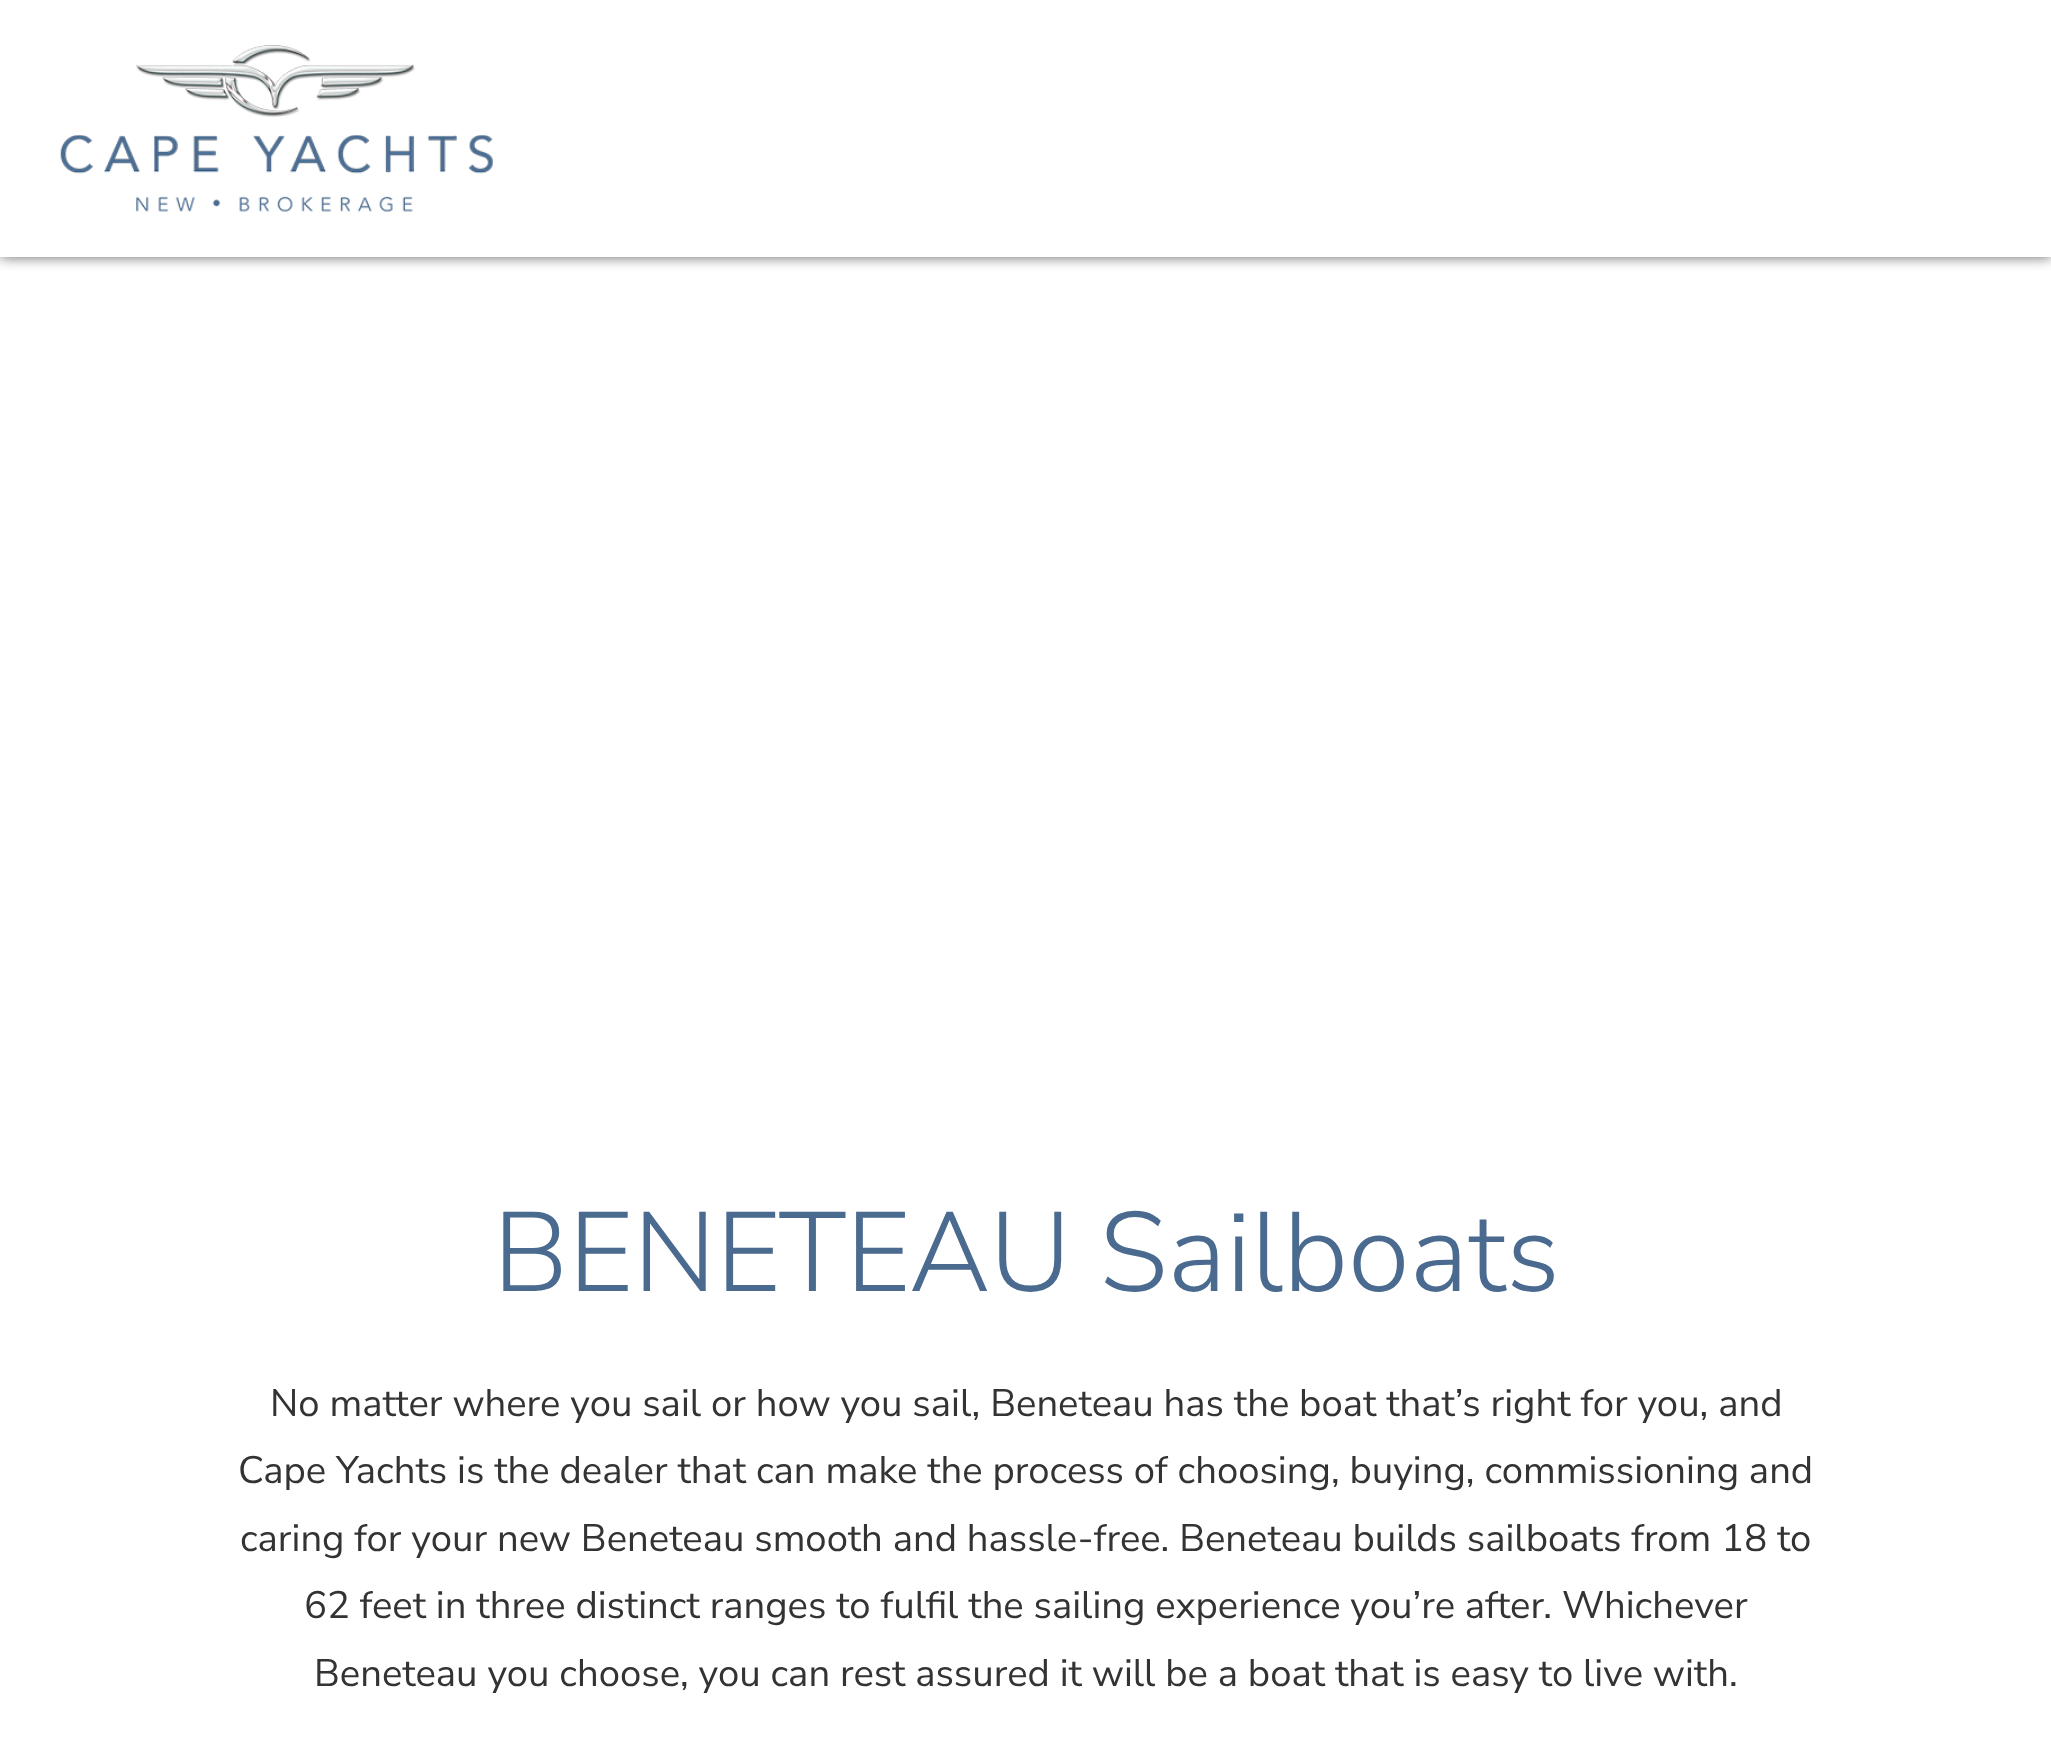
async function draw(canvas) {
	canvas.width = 2051;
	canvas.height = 1743;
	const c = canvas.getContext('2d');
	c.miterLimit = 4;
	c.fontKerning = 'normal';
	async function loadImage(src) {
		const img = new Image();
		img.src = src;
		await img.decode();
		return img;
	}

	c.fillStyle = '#fff';
	c.fillRect(0, 0, 2051, 1743);
	c.fillStyle = '#666';
	c.filter = 'blur(7px)';
	c.beginPath();
	c.rect(0, 0, 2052, 257);
	c.fill();
	c.filter = 'none';
	c.fillStyle = '#fff';
	c.fillRect(0, 0, 2051, 257);
	c.drawImage(await loadImage('img1.png'), 60, 45, 433, 167);
	c.font = '300 112.5px Nunito Sans';
	c.fillStyle = '#4a6b8f';
	c.fillText('BENETEAU Sailboats', 493, 1291);
	c.font = '38.25px Nunito Sans';
	c.fillStyle = '#333';
	for (const [text, x, y] of [
		['No matter where you sail or how you sail, Beneteau has the boat that’s right for you, and', 270, 1416],
		['Cape Yachts is the dealer that can make the process of choosing, buying, commissioning and', 238, 1483],
		['caring for your new Beneteau smooth and hassle-free. Beneteau builds sailboats from 18 to', 240, 1551],
		['62 feet in three distinct ranges to fulfil the sailing experience you’re after. Whichever', 304, 1618],
		['Beneteau you choose, you can rest assured it will be a boat that is easy to live with.', 314, 1686],
	]) {
		c.fillText(text, x, y);
	}
}

draw(document.querySelector('canvas'));
